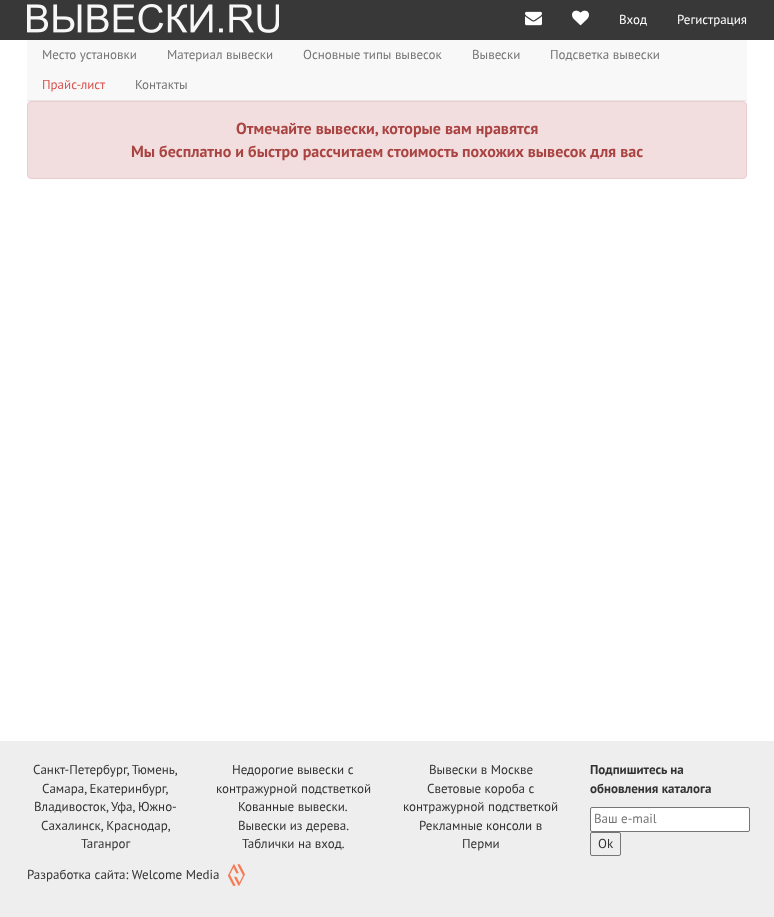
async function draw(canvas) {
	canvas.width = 774;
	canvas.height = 917;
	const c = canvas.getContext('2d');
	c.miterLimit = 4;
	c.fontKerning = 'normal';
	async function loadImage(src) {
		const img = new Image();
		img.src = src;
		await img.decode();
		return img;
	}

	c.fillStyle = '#fff';
	c.fillRect(0, 0, 774, 917);
	c.fillStyle = '#383838';
	c.fillRect(0, 0, 774, 40);
	c.drawImage(await loadImage('img1.png'), 27, 4, 252, 29);
	c.drawImage(await loadImage('img2.png'), 525, 11, 17, 15);
	c.drawImage(await loadImage('img3.png'), 572, 10, 17, 16);
	c.font = '13px PT Sans';
	c.fillStyle = '#fff';
	c.fillText('Вход', 619, 24);
	c.fillText('Регистрация', 677, 24);
	c.fillStyle = '#f8f8f8';
	c.fillRect(27, 40, 720, 60);
	c.fillStyle = '#e7e7e7';
	c.fillRect(27, 100, 720, 1);
	c.fillStyle = '#757575';
	for (const [text, x, y] of [
		['Место установки', 42, 59],
		['Материал вывески', 167, 59],
		['Основные типы вывесок', 303, 59],
		['Вывески', 472, 59],
		['Подсветка вывески', 550, 59],
	]) {
		c.fillText(text, x, y);
	}
	c.fillStyle = '#d9534f';
	c.fillText('Прайс-лист', 42, 89);
	c.fillStyle = '#757575';
	c.fillText('Контакты', 135, 89);
	c.fillStyle = '#f2dede';
	c.beginPath();
	c.roundRect(27.5, 101.5, 719, 77, 3.5);
	c.fill();
	c.strokeStyle = '#ebccd1';
	c.stroke();
	c.font = 'bold 16px PT Sans';
	c.fillStyle = '#a94442';
	c.fillText('Отмечайте вывески, которые вам нравятся', 236, 134);
	c.fillText('Мы бесплатно и быстро рассчитаем стоимость похожих вывесок для вас', 131, 157);
	c.fillStyle = '#eee';
	c.fillRect(0, 741, 774, 176);
	c.font = '13px PT Sans';
	c.fillStyle = '#333';
	for (const [text, x, y] of [
		['Санкт-Петербург, Тюмень,', 33, 774],
		['Самара, Екатеринбург,', 42, 793],
		['Владивосток, Уфа, Южно-', 34, 811],
		['Сахалинск, Краснодар,', 41, 830],
		['Таганрог', 81, 848],
		['Недорогие вывески с', 232, 774],
		['контражурной подстветкой', 216, 793],
		['Кованные вывески.', 238, 811],
		['Вывески из дерева.', 238, 830],
		['Таблички на вход.', 242, 848],
		['Вывески в Москве', 429, 774],
		['Световые короба с', 427, 793],
		['контражурной подстветкой', 403, 811],
		['Рекламные консоли в', 419, 830],
		['Перми', 462, 848],
	]) {
		c.fillText(text, x, y);
	}
	c.font = 'bold 13px PT Sans';
	c.fillText('Подпишитесь на', 590, 774);
	c.fillText('обновления каталога', 590, 793);
	c.fillStyle = '#fff';
	c.beginPath();
	c.roundRect(590.5, 807.5, 159, 24, 1.5);
	c.fill();
	c.strokeStyle = '#767676';
	c.stroke();
	c.font = '13px PT Sans';
	c.fillStyle = '#757575';
	c.fillText('Ваш e-mail', 594, 823);
	c.beginPath();
	c.roundRect(590.5, 832.5, 30, 23, 1.5);
	c.stroke();
	c.fillStyle = '#333';
	c.fillText('Ok', 598, 848);
	c.fillText('Разработка сайта: Welcome Media', 27, 879);
	c.drawImage(await loadImage('img4.png'), 227, 864, 18, 22);
}

draw(document.querySelector('canvas'));
